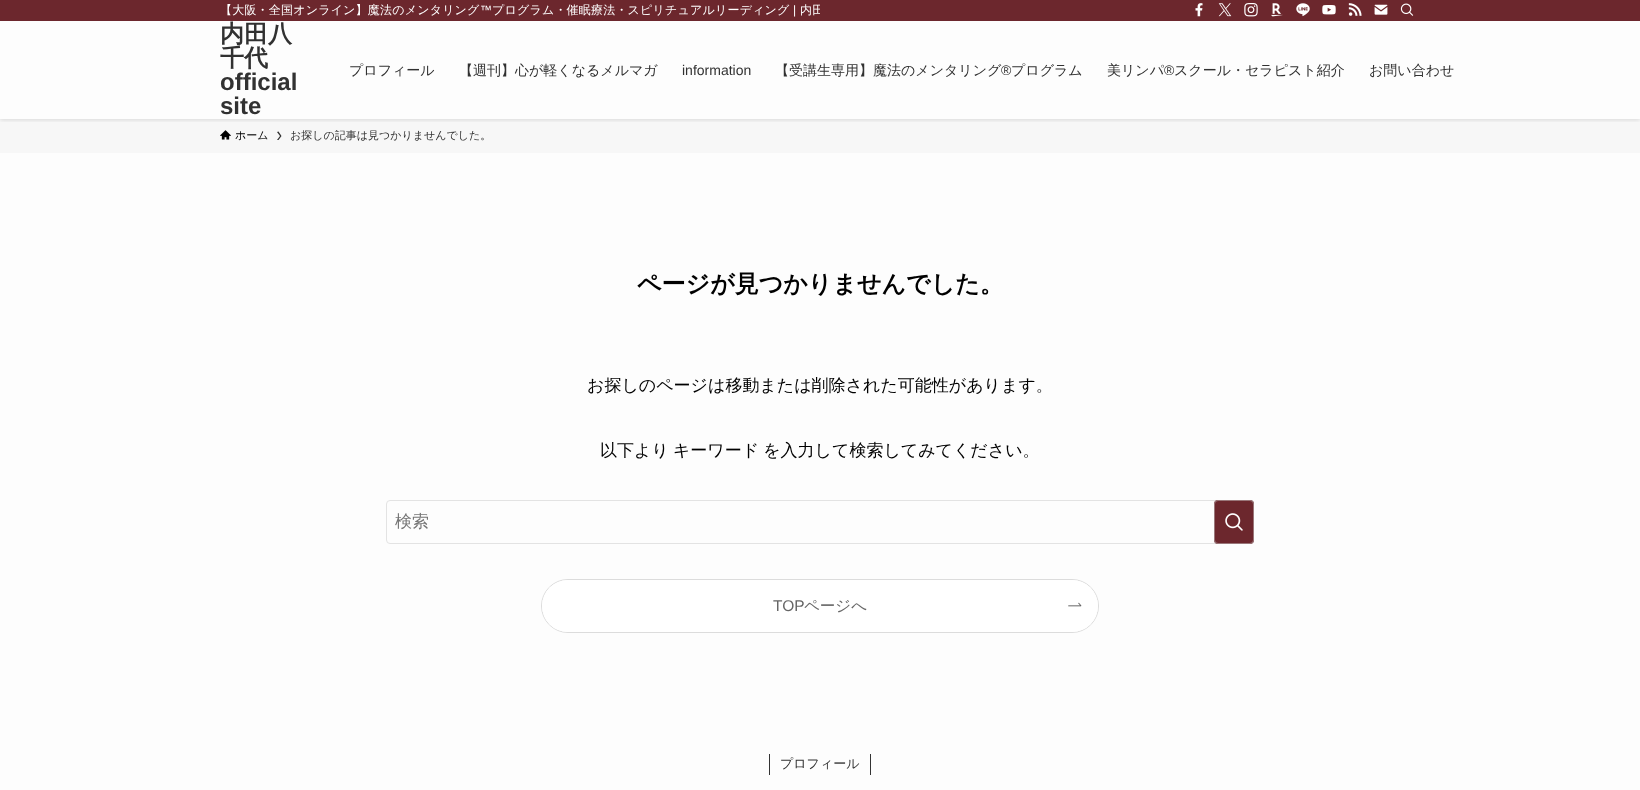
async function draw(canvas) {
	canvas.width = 1640;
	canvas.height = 790;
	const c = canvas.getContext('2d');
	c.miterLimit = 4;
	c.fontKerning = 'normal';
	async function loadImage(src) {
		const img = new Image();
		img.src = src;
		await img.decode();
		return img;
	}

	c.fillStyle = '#fdfdfd';
	c.fillRect(0, 0, 1640, 790);
	c.fillStyle = '#f7f7f7';
	c.fillRect(0, 119, 1640, 34);
	c.save();
	c.beginPath();
	c.rect(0, 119, 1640, 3);
	c.clip();
	c.fillStyle = '#0000001f';
	c.filter = 'blur(2px)';
	c.beginPath();
	c.rect(0, 0, 1640, 120);
	c.fill();
	c.filter = 'none';
	c.restore();
	c.fillStyle = '#6c272d';
	c.fillRect(0, 0, 1640, 21);
	c.letterSpacing = '0.2px';
	c.font = '500 12px WenQuanYi Zen Hei';
	c.fillStyle = '#fff';
	c.fillText('【大阪・全国オンライン】魔法のメンタリング', 220, 14);
	c.font = '12px Liberation Sans';
	c.fillText('™︎', 480, 14);
	c.font = '500 12px WenQuanYi Zen Hei';
	c.fillText('プログラム・催眠療法・スピリチュアルリーディング', 492, 14);
	c.font = '12px Liberation Sans';
	c.fillText('|', 793, 14);
	c.save();
	c.beginPath();
	c.rect(220, 0, 600, 21);
	c.clip();
	c.font = '500 12px WenQuanYi Zen Hei';
	c.fillText('内田', 800, 14);
	c.restore();
	c.drawImage(await loadImage('img1.png'), 1195, 3, 8, 14);
	c.drawImage(await loadImage('img2.png'), 1218, 3, 14, 14);
	c.drawImage(await loadImage('img3.png'), 1244, 3, 14, 14);
	c.drawImage(await loadImage('img4.png'), 1271, 3, 12, 14);
	c.drawImage(await loadImage('img5.png'), 1296, 3, 14, 14);
	c.drawImage(await loadImage('img6.png'), 1322, 5, 14, 10);
	c.drawImage(await loadImage('img7.png'), 1348, 3, 14, 13);
	c.drawImage(await loadImage('img8.png'), 1374, 4, 14, 11);
	c.drawImage(await loadImage('img9.png'), 1400, 3, 14, 13);
	c.letterSpacing = '0px';
	c.font = 'bold 24px WenQuanYi Zen Hei';
	c.fillStyle = '#313131';
	c.fillText('内田八', 220, 42);
	c.fillText('千代', 220, 66);
	c.font = 'bold 24px Liberation Sans';
	c.fillText('official', 220, 90);
	c.fillText('site', 220, 114);
	c.font = '500 14px WenQuanYi Zen Hei';
	c.fillText('プロフィール', 349, 75);
	c.fillText('【週刊】心が軽くなるメルマガ', 459, 75);
	c.font = '14px Liberation Sans';
	c.fillText('information', 682, 75);
	c.font = '500 14px WenQuanYi Zen Hei';
	c.fillText('【受講生専用】魔法のメンタリング', 775, 75);
	c.font = '14px Liberation Sans';
	c.fillText('®︎', 1001, 75);
	c.font = '500 14px WenQuanYi Zen Hei';
	c.fillText('プログラム', 1011, 75);
	c.fillText('美リンパ', 1107, 75);
	c.font = '14px Liberation Sans';
	c.fillText('®︎', 1164, 75);
	c.font = '500 14px WenQuanYi Zen Hei';
	c.fillText('スクール・セラピスト紹介', 1174, 75);
	c.fillText('お問い合わせ', 1369, 75);
	c.drawImage(await loadImage('img10.png'), 220, 130, 11, 10);
	c.font = '500 11px WenQuanYi Zen Hei';
	c.fillStyle = '#000';
	c.fillText('ホーム', 235, 139);
	c.fillStyle = '#313131';
	c.beginPath();
	c.moveTo(278.5, 131.5);
	c.lineTo(277, 132);
	c.lineTo(280, 136);
	c.lineTo(277, 140);
	c.lineTo(278.5, 140);
	c.lineTo(281.5, 136);
	c.closePath();
	c.fill();
	c.fillText('お探しの記事は見つかりませんでした。', 290, 139);
	c.font = 'bold 24px WenQuanYi Zen Hei';
	c.fillStyle = '#000';
	c.fillText('ページが見つかりませんでした。', 637, 292);
	c.font = '500 17px WenQuanYi Zen Hei';
	c.fillText('お探しのページは移動または削除された可能性があります。', 587, 391);
	c.wordSpacing = '-1px';
	c.fillText('以下より キーワード を入力して検索してみてください。', 600, 456);
	c.beginPath();
	c.roundRect(386.5, 500.5, 867, 43, 3.5);
	c.strokeStyle = '#e3e3e3';
	c.stroke();
	c.wordSpacing = '0px';
	c.fillStyle = '#757575';
	c.fillText('検索', 395, 527);
	c.fillStyle = '#6c272d';
	c.beginPath();
	c.roundRect(1214, 500, 40, 44, 4);
	c.fill();
	c.beginPath();
	c.roundRect(1214.5, 500.5, 39, 43, 3.5);
	c.strokeStyle = '#c7c7c780';
	c.stroke();
	c.drawImage(await loadImage('img11.png'), 1225, 513, 18, 18);
	c.beginPath();
	c.roundRect(541.5, 579.5, 557, 53, 26.5);
	c.strokeStyle = '#dcdcdc';
	c.stroke();
	c.fillStyle = '#fff';
	c.beginPath();
	c.roundRect(542, 580, 556, 52, 26);
	c.fill();
	c.font = '15.5px Liberation Sans';
	c.fillStyle = '#666';
	c.fillText('TOP', 773, 611);
	c.font = '500 15.5px WenQuanYi Zen Hei';
	c.fillText('ページへ', 804, 611);
	c.drawImage(await loadImage('img12.png'), 1068, 602, 14, 5);
	c.fillStyle = '#333';
	c.fillRect(870, 754, 1, 21);
	c.fillRect(769, 754, 1, 21);
	c.font = '500 13px WenQuanYi Zen Hei';
	c.fillStyle = '#313131';
	c.fillText('プロフィール', 780, 768);
}

draw(document.querySelector('canvas'));
